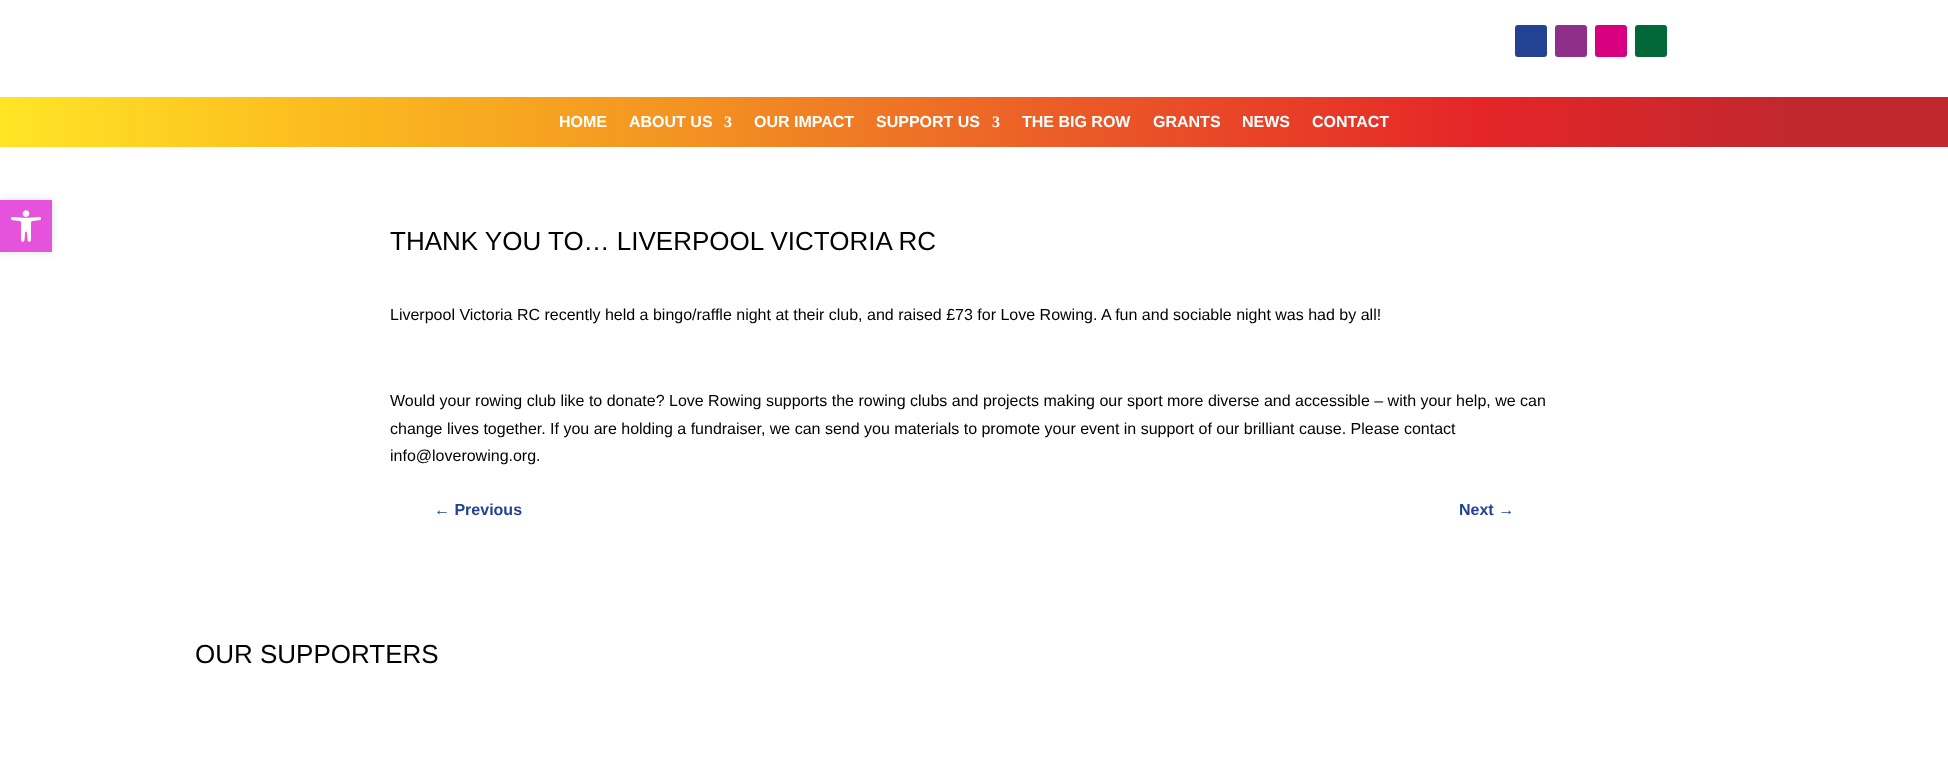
async function draw(canvas) {
	canvas.width = 1948;
	canvas.height = 769;
	const c = canvas.getContext('2d');
	c.miterLimit = 4;
	c.fontKerning = 'normal';
	async function loadImage(src) {
		const img = new Image();
		img.src = src;
		await img.decode();
		return img;
	}
	let gradient;

	c.fillStyle = '#fff';
	c.fillRect(0, 0, 1948, 769);
	c.fillStyle = '#0000001a';
	c.filter = 'blur(5px)';
	c.beginPath();
	c.rect(0, 200, 52, 52);
	c.fill();
	c.filter = 'none';
	c.fillStyle = '#e552db';
	c.fillRect(0, 200, 52, 52);
	c.drawImage(await loadImage('img1.png'), 11, 210, 30, 32);
	c.fillStyle = '#234294';
	c.beginPath();
	c.roundRect(1515, 25, 32, 32, 3);
	c.fill();
	c.fillStyle = '#8e2f89';
	c.beginPath();
	c.roundRect(1555, 25, 32, 32, 3);
	c.fill();
	c.fillStyle = '#d8007e';
	c.beginPath();
	c.roundRect(1595, 25, 32, 32, 3);
	c.fill();
	c.fillStyle = '#026838';
	c.beginPath();
	c.roundRect(1635, 25, 32, 32, 3);
	c.fill();
	gradient = c.createLinearGradient(0, 122, 1948, 122);
	gradient.addColorStop(0, '#ffe526');
	gradient.addColorStop(0.15, '#fcbf1f');
	gradient.addColorStop(0.35, '#f39322');
	gradient.addColorStop(0.55, '#eb5b27');
	gradient.addColorStop(0.76, '#e52528');
	gradient.addColorStop(0.92, '#c1282e');
	c.fillStyle = gradient;
	c.fillRect(0, 97, 1948, 50);
	c.font = 'bold 16px Liberation Sans';
	c.fillStyle = '#fff';
	c.fillText('HOME', 559, 127);
	c.fillText('ABOUT US', 629, 127);
	c.font = 'bold 16px Liberation Serif';
	c.fillText('3', 724, 127);
	c.font = 'bold 16px Liberation Sans';
	c.fillText('OUR IMPACT', 754, 127);
	c.fillText('SUPPORT US', 876, 127);
	c.font = 'bold 16px Liberation Serif';
	c.fillText('3', 992, 127);
	c.font = 'bold 16px Liberation Sans';
	for (const [text, x, y] of [
		['THE BIG ROW', 1022, 127],
		['GRANTS', 1153, 127],
		['NEWS', 1242, 127],
		['CONTACT', 1312, 127],
	]) {
		c.fillText(text, x, y);
	}
	c.font = '26px Liberation Sans';
	c.fillStyle = '#000';
	c.fillText('THANK YOU TO… LIVERPOOL VICTORIA RC', 390, 250);
	c.font = '16px Liberation Sans';
	for (const [text, x, y] of [
		['Liverpool Victoria RC recently held a bingo/raffle night at their club, and raised £73 for Love Rowing. A fun and sociable night was had by all!', 390, 320],
		['Would your rowing club like to donate? Love Rowing supports the rowing clubs and projects making our sport more diverse and accessible – with your help, we can', 390, 406],
		['change lives together. If you are holding a fundraiser, we can send you materials to promote your event in support of our brilliant cause. Please contact', 390, 434],
		['info@loverowing.org.', 390, 461],
	]) {
		c.fillText(text, x, y);
	}
	c.font = 'bold 16px Liberation Sans';
	c.fillStyle = '#234294';
	c.fillText('← Previous', 434, 515);
	c.fillText('Next →', 1459, 515);
	c.font = '26px Liberation Sans';
	c.fillStyle = '#000';
	c.fillText('OUR SUPPORTERS', 195, 663);
}

draw(document.querySelector('canvas'));
